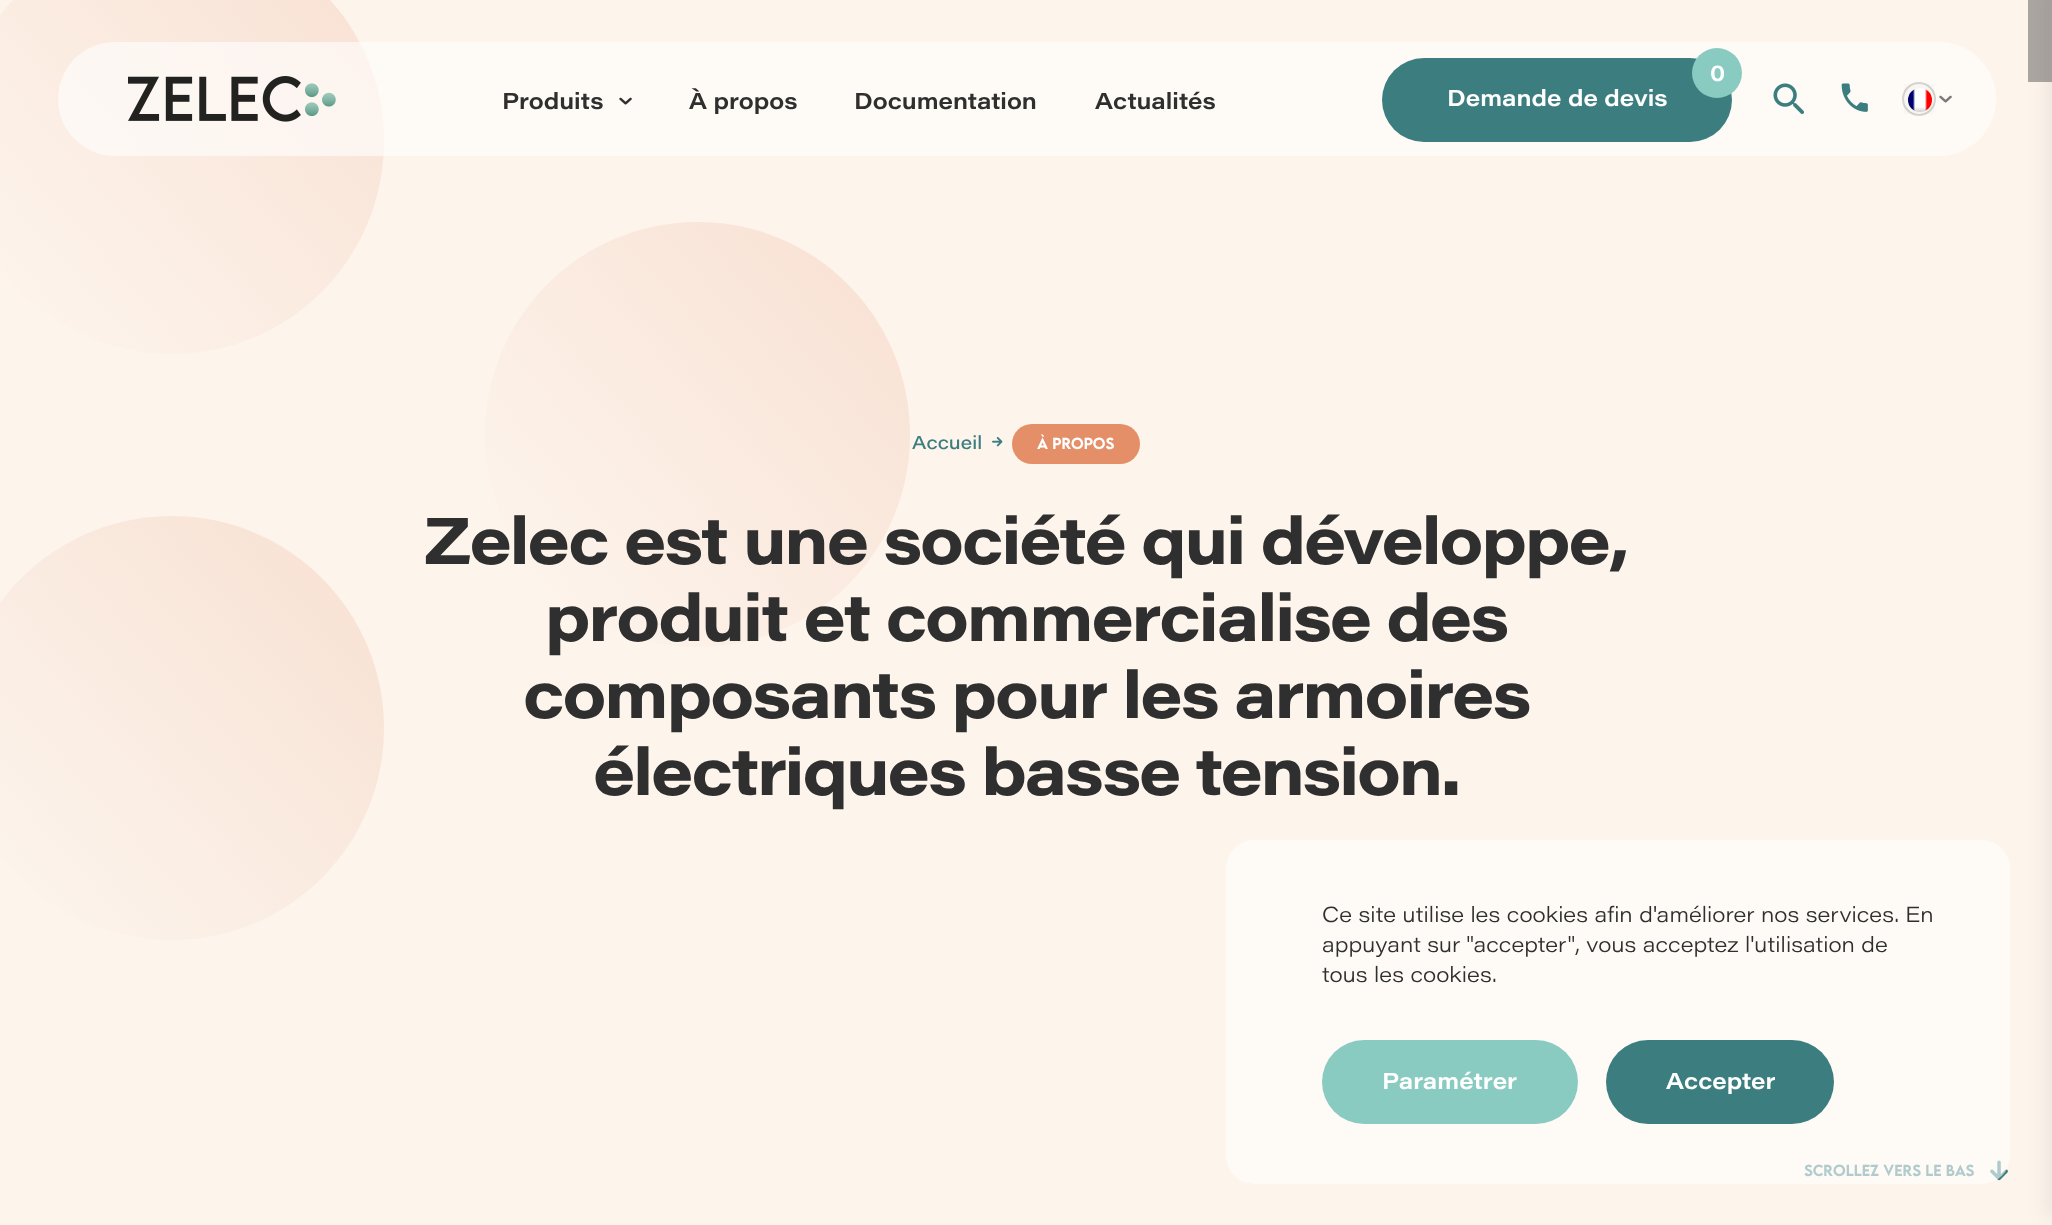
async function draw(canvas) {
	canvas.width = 2052;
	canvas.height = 1225;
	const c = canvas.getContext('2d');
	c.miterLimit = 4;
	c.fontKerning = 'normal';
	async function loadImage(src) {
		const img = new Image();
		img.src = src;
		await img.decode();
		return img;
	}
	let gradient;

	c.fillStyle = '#fdf4ec';
	c.fillRect(0, 0, 2052, 1225);
	c.fillStyle = '#7979791a';
	c.filter = 'blur(8px)';
	c.beginPath();
	c.rect(2044, -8, 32, 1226);
	c.fill();
	c.filter = 'none';
	c.fillStyle = '#2f2f2f66';
	c.fillRect(2028, 0, 24, 82);
	gradient = c.createLinearGradient(557, -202, -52, 341);
	gradient.addColorStop(0, '#f6d8c7');
	gradient.addColorStop(0.92, '#fdf4ec');
	c.fillStyle = gradient;
	c.beginPath();
	c.moveTo(172, -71);
	c.bezierCurveTo(54, -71, -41, 24, -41, 141);
	c.bezierCurveTo(-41, 259, 54, 354, 172, 354);
	c.bezierCurveTo(289, 354, 384, 259, 384, 141);
	c.bezierCurveTo(384, 24, 289, -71, 172, -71);
	c.closePath();
	c.fill();
	c.fillStyle = '#ffffff99';
	c.beginPath();
	c.roundRect(58, 42, 1938, 114, 57);
	c.fill();
	c.drawImage(await loadImage('img1.png'), 128, 76, 173, 46);
	c.drawImage(await loadImage('img2.png'), 305, 83, 14, 15);
	c.drawImage(await loadImage('img3.png'), 322, 92, 14, 15);
	c.drawImage(await loadImage('img4.png'), 305, 102, 14, 15);
	c.font = '600 22.75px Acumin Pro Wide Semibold';
	c.fillStyle = '#2f2f2f';
	c.fillText('Produits', 502, 109);
	c.drawImage(await loadImage('img5.png'), 619, 97, 13, 8);
	for (const [text, x, y] of [
		['À propos', 689, 109],
		['Documentation', 854, 109],
		['Actualités', 1095, 109],
	]) {
		c.fillText(text, x, y);
	}
	c.fillStyle = '#3c7e7f';
	c.beginPath();
	c.roundRect(1382, 58, 350, 84, 42);
	c.fill();
	c.fillStyle = '#8acbc1';
	c.beginPath();
	c.arc(1717, 73, 25, 0, 2 * Math.PI);
	c.fill();
	c.fillStyle = '#fff';
	c.fillText('0', 1710, 81);
	c.fillText('Demande de devis', 1447, 106);
	c.drawImage(await loadImage('img6.png'), 1773, 83, 31, 31);
	c.drawImage(await loadImage('img7.png'), 1841, 83, 27, 29);
	c.beginPath();
	c.arc(1919, 99, 16, 0, 2 * Math.PI);
	c.strokeStyle = '#d6d4d1';
	c.lineWidth = 2;
	c.stroke();
	c.drawImage(await loadImage('img8.png'), 1904, 84, 30, 30);
	c.drawImage(await loadImage('img9.png'), 1939, 95, 13, 8);
	gradient = c.createLinearGradient(1083, 91, 474, 634);
	gradient.addColorStop(0, '#e48f6847');
	gradient.addColorStop(0.92, '#e48f6800');
	c.fillStyle = gradient;
	c.beginPath();
	c.moveTo(698, 222);
	c.bezierCurveTo(580, 222, 485, 317, 485, 435);
	c.bezierCurveTo(485, 552, 580, 647, 698, 647);
	c.bezierCurveTo(815, 647, 910, 552, 910, 435);
	c.bezierCurveTo(910, 317, 815, 222, 698, 222);
	c.closePath();
	c.fill();
	gradient = c.createLinearGradient(557, 384, -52, 928);
	gradient.addColorStop(0, '#f6d8c7');
	gradient.addColorStop(0.92, '#fcf4ec');
	c.fillStyle = gradient;
	c.beginPath();
	c.moveTo(172, 516);
	c.bezierCurveTo(54, 516, -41, 611, -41, 728);
	c.bezierCurveTo(-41, 845, 54, 940, 172, 940);
	c.bezierCurveTo(289, 940, 384, 845, 384, 728);
	c.bezierCurveTo(384, 611, 289, 516, 172, 516);
	c.closePath();
	c.fill();
	c.font = '500 18.5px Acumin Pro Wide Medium';
	c.fillStyle = '#3c7e7f';
	c.fillText('Accueil', 912, 449);
	c.drawImage(await loadImage('img10.png'), 992, 437, 11, 10);
	c.fillStyle = '#e48f68';
	c.beginPath();
	c.roundRect(1012, 424, 128, 40, 20);
	c.fill();
	c.font = '500 14.25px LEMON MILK';
	c.fillStyle = '#fff';
	c.fillText('À PROPOS', 1037, 449);
	c.letterSpacing = '-1.95px';
	c.font = 'bold 65.5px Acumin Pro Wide';
	c.fillStyle = '#2f2f2f';
	for (const [text, x, y] of [
		['Zelec est une société qui développe,', 424, 564],
		['produit et commercialise des', 545, 641],
		['composants pour les armoires', 523, 718],
		['électriques basse tension.', 593, 795],
	]) {
		c.fillText(text, x, y);
	}
	c.letterSpacing = '0px';
	c.font = '500 14.25px LEMON MILK';
	c.fillStyle = '#3c7e7f';
	c.fillText('SCROLLEZ VERS LE BAS', 1804, 1176);
	c.drawImage(await loadImage('img11.png'), 1990, 1160, 18, 21);
	c.fillStyle = '#ffffff99';
	c.beginPath();
	c.roundRect(1226, 840, 784, 344, 28);
	c.fill();
	c.font = '300 21.4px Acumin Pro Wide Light';
	c.fillStyle = '#2f2f2f';
	for (const [text, x, y] of [
		['Ce site utilise les cookies afin d\'améliorer nos services. En', 1322, 922],
		['appuyant sur "accepter", vous acceptez l\'utilisation de', 1322, 952],
		['tous les cookies.', 1322, 982],
	]) {
		c.fillText(text, x, y);
	}
	c.fillStyle = '#8acbc1';
	c.beginPath();
	c.roundRect(1322, 1040, 256, 84, 42);
	c.fill();
	c.font = '600 22.75px Acumin Pro Wide Semibold';
	c.fillStyle = '#fff';
	c.fillText('Paramétrer', 1382, 1089);
	c.fillStyle = '#3c7e7f';
	c.beginPath();
	c.roundRect(1606, 1040, 228, 84, 42);
	c.fill();
	c.fillStyle = '#fff';
	c.fillText('Accepter', 1666, 1089);
}

draw(document.querySelector('canvas'));
